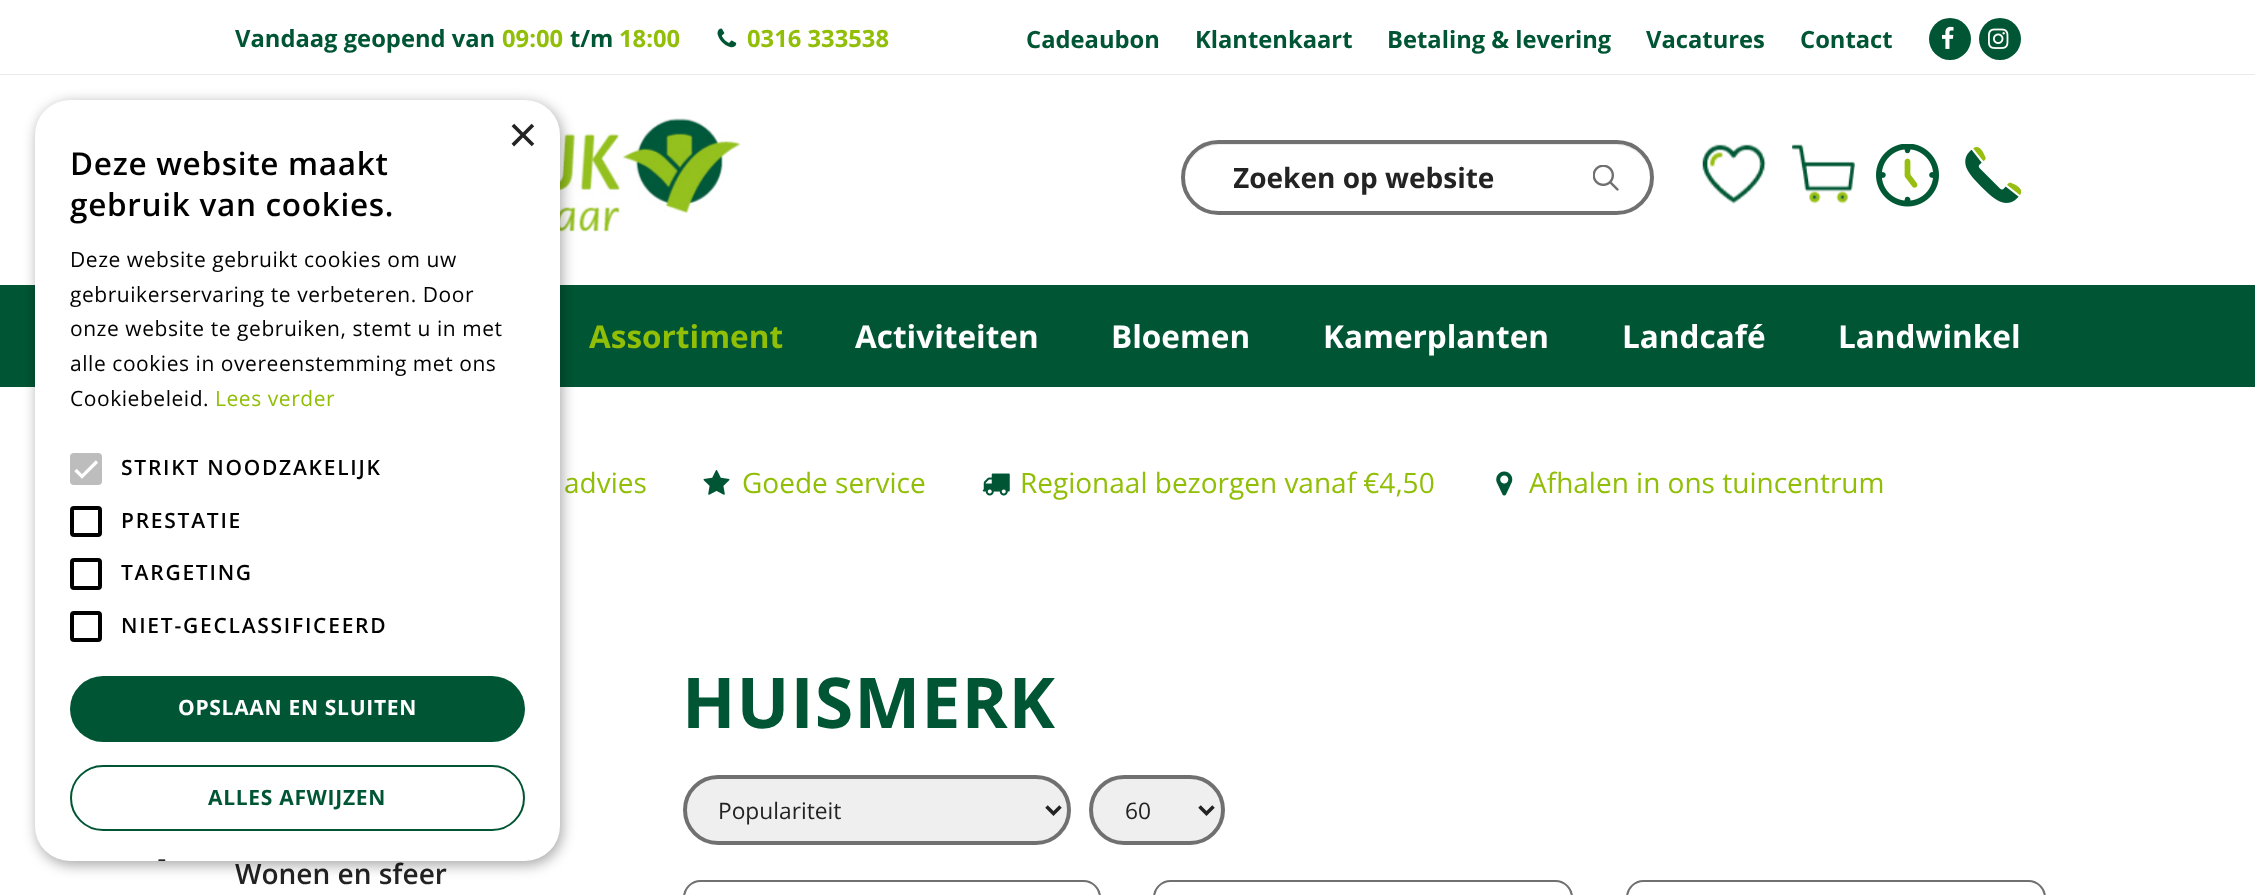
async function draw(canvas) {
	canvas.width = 2255;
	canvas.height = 895;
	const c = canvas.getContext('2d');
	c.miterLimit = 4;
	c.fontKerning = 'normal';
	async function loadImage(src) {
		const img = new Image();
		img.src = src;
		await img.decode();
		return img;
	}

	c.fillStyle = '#fff';
	c.fillRect(0, 0, 2255, 895);
	c.fillStyle = '#eaeaea';
	c.fillRect(0, 74, 2255, 1);
	c.font = 'bold 23.75px Open Sans';
	c.fillStyle = '#005634';
	c.fillText('Vandaag geopend van', 235, 47);
	c.fillStyle = '#91be06';
	c.fillText('09:00', 502, 47);
	c.fillStyle = '#005634';
	c.fillText('t/m', 570, 47);
	c.fillStyle = '#91be06';
	c.fillText('18:00', 619, 47);
	c.drawImage(await loadImage('img1.png'), 717, 28, 20, 20);
	c.fillText('0316 333538', 747, 47);
	c.fillStyle = '#005634';
	for (const [text, x, y] of [
		['Cadeaubon', 1026, 48],
		['Klantenkaart', 1195, 48],
		['Betaling & levering', 1387, 48],
		['Vacatures', 1646, 48],
		['Contact', 1800, 48],
	]) {
		c.fillText(text, x, y);
	}
	c.beginPath();
	c.arc(1950, 39, 21, 0, 2 * Math.PI);
	c.fill();
	c.drawImage(await loadImage('img2.png'), 1942, 26, 12, 23);
	c.beginPath();
	c.arc(2000, 39, 21, 0, 2 * Math.PI);
	c.fill();
	c.drawImage(await loadImage('img3.png'), 1988, 28, 21, 21);
	c.drawImage(await loadImage('img4.png'), 555, 118, 186, 114);
	c.fillStyle = '#ececec';
	c.beginPath();
	c.moveTo(1219, 145);
	c.lineTo(1616, 145);
	c.bezierCurveTo(1635, 145, 1650, 161, 1650, 179);
	c.bezierCurveTo(1650, 160, 1635, 144, 1616, 144);
	c.lineTo(1219, 144);
	c.bezierCurveTo(1200, 144, 1185, 160, 1185, 179);
	c.bezierCurveTo(1185, 161, 1200, 145, 1219, 145);
	c.closePath();
	c.fill();
	c.beginPath();
	c.roundRect(1183, 142, 469, 71, 35.5);
	c.strokeStyle = '#707070';
	c.lineWidth = 4;
	c.stroke();
	c.save();
	c.beginPath();
	c.rect(1234, 159, 367, 39);
	c.clip();
	c.font = 'bold 28px Open Sans';
	c.fillStyle = '#232323';
	c.fillText('Zoeken op website', 1233, 188);
	c.restore();
	c.drawImage(await loadImage('img5.png'), 1593, 165, 26, 26);
	c.drawImage(await loadImage('img6.png'), 1702, 144, 64, 60);
	c.drawImage(await loadImage('img7.png'), 1792, 144, 63, 60);
	c.drawImage(await loadImage('img8.png'), 1876, 144, 63, 63);
	c.drawImage(await loadImage('img9.png'), 1965, 147, 56, 56);
	c.fillStyle = '#005634';
	c.fillRect(0, 285, 2255, 102);
	c.font = 'bold 31.5px Open Sans';
	c.fillStyle = '#91be06';
	c.fillText('Assortiment', 589, 348);
	c.fillStyle = '#fff';
	for (const [text, x, y] of [
		['Activiteiten', 855, 348],
		['Bloemen', 1111, 348],
		['Kamerplanten', 1323, 348],
		['Landcafé', 1622, 348],
		['Landwinkel', 1838, 348],
	]) {
		c.fillText(text, x, y);
	}
	c.letterSpacing = '1px';
	c.font = 'bold 70px Open Sans';
	c.fillStyle = '#005634';
	c.fillText('HUISMERK', 682, 728);
	c.fillStyle = '#efefef';
	c.beginPath();
	c.roundRect(685, 777, 384, 66, 33);
	c.fill();
	c.stroke();
	c.beginPath();
	c.moveTo(1046.5, 806.5);
	c.lineTo(1053.5, 813.5);
	c.lineTo(1060.5, 806.5);
	c.strokeStyle = '#232323';
	c.lineWidth = 3.5;
	c.stroke();
	c.letterSpacing = '0px';
	c.font = '22.75px Open Sans';
	c.fillStyle = '#232323';
	c.fillText('Populariteit', 718, 819);
	c.fillStyle = '#efefef';
	c.beginPath();
	c.roundRect(1091, 777, 132, 66, 33);
	c.fill();
	c.strokeStyle = '#707070';
	c.lineWidth = 4;
	c.stroke();
	c.beginPath();
	c.moveTo(1199.5, 806.5);
	c.lineTo(1206.5, 813.5);
	c.lineTo(1213.5, 806.5);
	c.strokeStyle = '#232323';
	c.lineWidth = 3.5;
	c.stroke();
	c.fillStyle = '#232323';
	c.fillText('60', 1125, 819);
	c.beginPath();
	c.roundRect(684, 881, 416, 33, 17);
	c.strokeStyle = '#707070';
	c.lineWidth = 2;
	c.stroke();
	c.beginPath();
	c.roundRect(1154, 881, 418, 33, 17);
	c.stroke();
	c.beginPath();
	c.roundRect(1627, 881, 418, 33, 17);
	c.stroke();
	c.font = '600 28px Open Sans';
	c.fillText('Wonen en sfeer', 235, 884);
	c.font = '28px Open Sans';
	c.fillStyle = '#91be06';
	c.fillText('advies', 564, 493);
	c.drawImage(await loadImage('img10.png'), 703, 470, 27, 25);
	c.fillText('Goede service', 742, 493);
	c.drawImage(await loadImage('img11.png'), 982, 473, 28, 23);
	c.fillText('Regionaal bezorgen vanaf €4,50', 1020, 493);
	c.drawImage(await loadImage('img12.png'), 1496, 471, 17, 25);
	c.fillText('Afhalen in ons tuincentrum', 1529, 493);
	c.fillStyle = '#00000059';
	c.filter = 'blur(7px)';
	c.beginPath();
	c.roundRect(37, 103, 525, 762, 35);
	c.fill();
	c.filter = 'none';
	c.fillStyle = '#fff';
	c.beginPath();
	c.roundRect(35, 100, 525, 761, 35);
	c.fill();
	c.font = '51px Liberation Sans';
	c.fillStyle = '#232323';
	c.fillText('×', 508, 152);
	c.letterSpacing = '0.7px';
	c.font = '600 31.5px Open Sans';
	c.fillStyle = '#000';
	c.fillText('Deze website maakt', 70, 175);
	c.fillText('gebruik van cookies.', 70, 216);
	c.letterSpacing = '0.55px';
	c.font = '21px Open Sans';
	for (const [text, x, y] of [
		['Deze website gebruikt cookies om uw', 70, 267],
		['gebruikerservaring te verbeteren. Door', 70, 302],
		['onze website te gebruiken, stemt u in met', 70, 336],
		['alle cookies in overeenstemming met ons', 70, 371],
		['Cookiebeleid.', 70, 406],
	]) {
		c.fillText(text, x, y);
	}
	c.fillStyle = '#91be06';
	c.fillText('Lees verder', 215, 406);
	c.fillStyle = '#bdbdbd';
	c.beginPath();
	c.roundRect(70, 453, 32, 32, 4);
	c.fill();
	c.beginPath();
	c.moveTo(75.5, 470);
	c.lineTo(82, 476.5);
	c.lineTo(97, 461.5);
	c.strokeStyle = '#fff';
	c.lineWidth = 3.2;
	c.stroke();
	c.letterSpacing = '1.75px';
	c.font = '600 21px Open Sans';
	c.fillStyle = '#000';
	c.fillText('STRIKT NOODZAKELIJK', 121, 475);
	c.beginPath();
	c.roundRect(72, 508, 28, 27, 2);
	c.strokeStyle = '#000';
	c.lineWidth = 4;
	c.stroke();
	c.fillText('PRESTATIE', 121, 528);
	c.beginPath();
	c.roundRect(72, 560, 28, 28, 2);
	c.stroke();
	c.fillText('TARGETING', 121, 580);
	c.beginPath();
	c.roundRect(72, 613, 28, 27, 2);
	c.stroke();
	c.fillText('NIET-GECLASSIFICEERD', 121, 633);
	c.fillStyle = '#005634';
	c.beginPath();
	c.roundRect(70, 676, 455, 66, 33);
	c.fill();
	c.letterSpacing = '0.7px';
	c.font = 'bold 21px Open Sans';
	c.fillStyle = '#fff';
	c.fillText('OPSLAAN EN SLUITEN', 178, 715);
	c.beginPath();
	c.roundRect(71, 766, 453, 64, 32);
	c.strokeStyle = '#005634';
	c.lineWidth = 2;
	c.stroke();
	c.fillStyle = '#005634';
	c.fillText('ALLES AFWIJZEN', 208, 805);
	c.drawImage(await loadImage('img13.png'), 158, 859, 8, 2);
}

draw(document.querySelector('canvas'));
